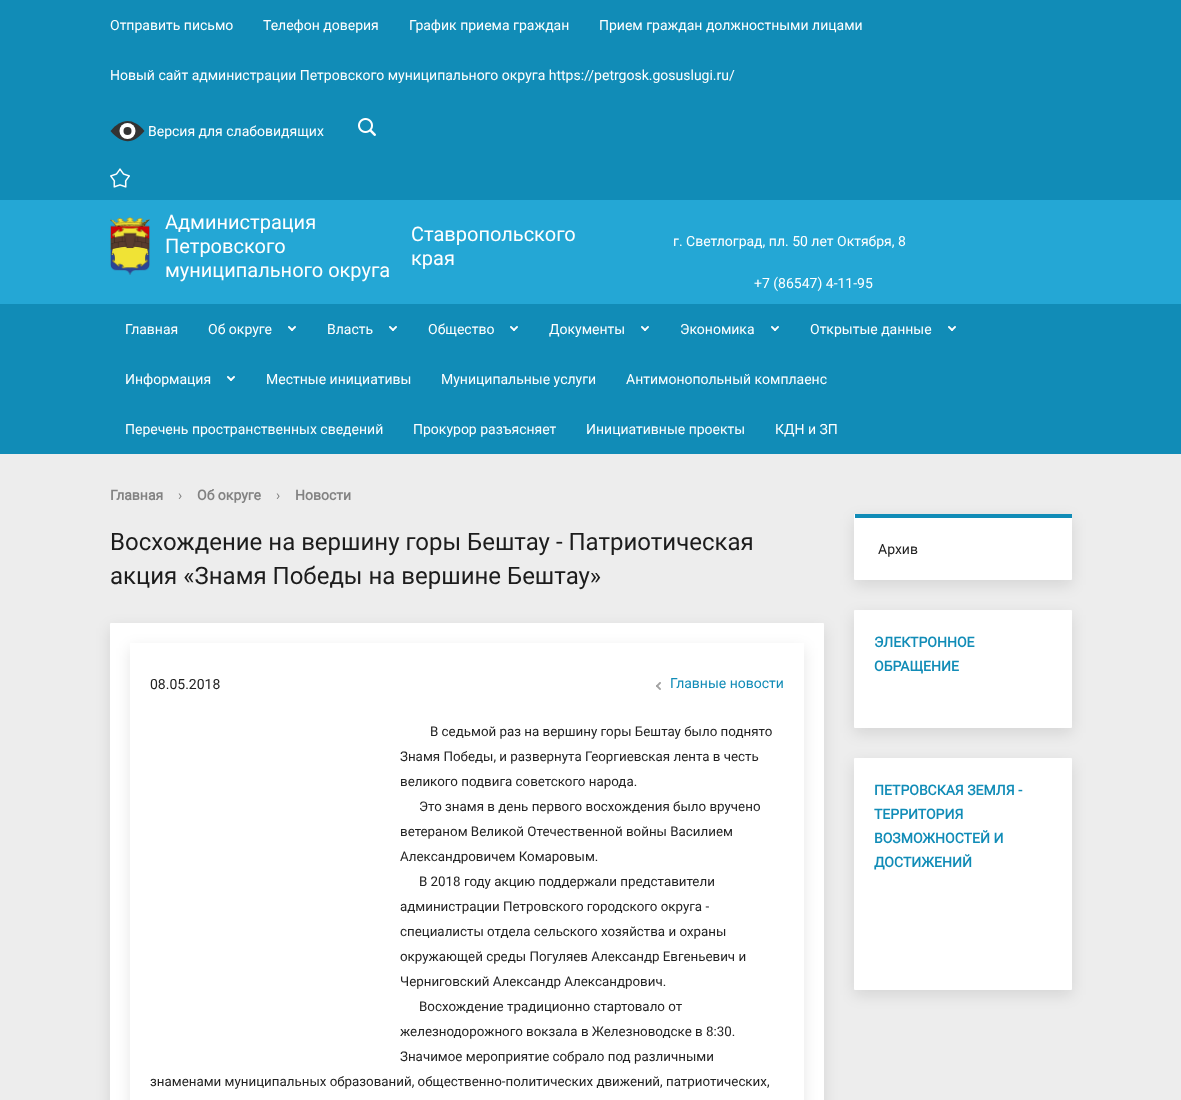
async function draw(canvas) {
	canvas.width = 1181;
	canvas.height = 1100;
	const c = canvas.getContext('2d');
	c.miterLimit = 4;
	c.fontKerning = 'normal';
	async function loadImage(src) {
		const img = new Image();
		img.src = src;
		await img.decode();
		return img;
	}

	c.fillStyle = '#ededed';
	c.fillRect(0, 0, 1181, 1100);
	c.fillStyle = '#118cb7';
	c.fillRect(0, 0, 1181, 200);
	c.font = '14px Roboto';
	c.fillStyle = '#fff';
	for (const [text, x, y] of [
		['Отправить письмо', 110, 30],
		['Телефон доверия', 263, 30],
		['График приема граждан', 409, 30],
		['Прием граждан должностными лицами', 599, 30],
		['Новый сайт администрации Петровского муниципального округа https://petrgosk.gosuslugi.ru/', 110, 80],
	]) {
		c.fillText(text, x, y);
	}
	c.fillStyle = '#333';
	c.beginPath();
	c.moveTo(110.5, 131);
	c.bezierCurveTo(121.5, 118, 133, 117.5, 144.5, 131);
	c.bezierCurveTo(134, 144, 122.5, 145, 110.5, 131);
	c.closePath();
	c.fill();
	c.fillStyle = '#fff';
	c.beginPath();
	c.arc(127.5, 131, 8, 0, 2 * Math.PI);
	c.fill();
	c.fillText('Версия для слабовидящих', 148, 136);
	c.fillStyle = '#333';
	c.beginPath();
	c.arc(127.5, 131, 4, 0, 2 * Math.PI);
	c.fill();
	c.drawImage(await loadImage('img1.png'), 358, 118, 18, 18);
	c.drawImage(await loadImage('img2.png'), 110, 168, 20, 20);
	c.fillStyle = '#24a7d5';
	c.fillRect(0, 200, 1181, 104);
	c.drawImage(await loadImage('img3.png'), 110, 217, 40, 58);
	c.font = '20px Roboto';
	c.fillStyle = '#fff';
	for (const [text, x, y] of [
		['Администрация', 165, 229],
		['Петровского', 165, 253],
		['муниципального округа', 165, 277],
		['Ставропольского', 411, 241],
		['края', 411, 265],
	]) {
		c.fillText(text, x, y);
	}
	c.font = '14px Roboto';
	c.fillText('г. Светлоград, пл. 50 лет Октября, 8', 673, 246);
	c.fillText('+7 (86547) 4-11-95', 754, 288);
	c.fillStyle = '#118cb7';
	c.fillRect(0, 304, 1181, 150);
	c.fillStyle = '#fff';
	c.fillText('Главная', 125, 334);
	c.fillText('Об округе', 208, 334);
	c.drawImage(await loadImage('img4.png'), 288, 326, 8, 5);
	c.fillText('Власть', 327, 334);
	c.drawImage(await loadImage('img4.png'), 389, 326, 8, 5);
	c.fillText('Общество', 428, 334);
	c.drawImage(await loadImage('img4.png'), 510, 326, 8, 5);
	c.fillText('Документы', 549, 334);
	c.drawImage(await loadImage('img4.png'), 641, 326, 8, 5);
	c.fillText('Экономика', 680, 334);
	c.drawImage(await loadImage('img4.png'), 771, 326, 8, 5);
	c.fillText('Открытые данные', 810, 334);
	c.drawImage(await loadImage('img4.png'), 948, 326, 8, 5);
	c.fillText('Информация', 125, 384);
	c.drawImage(await loadImage('img4.png'), 227, 376, 8, 5);
	for (const [text, x, y] of [
		['Местные инициативы', 266, 384],
		['Муниципальные услуги', 441, 384],
		['Антимонопольный комплаенс', 626, 384],
		['Перечень пространственных сведений', 125, 434],
		['Прокурор разъясняет', 413, 434],
		['Инициативные проекты', 586, 434],
		['КДН и ЗП', 775, 434],
	]) {
		c.fillText(text, x, y);
	}
	c.font = 'bold 14px Roboto';
	c.fillStyle = '#828282';
	c.fillText('Главная', 110, 500);
	c.font = '14px Roboto';
	c.fillText('›', 178, 500);
	c.font = 'bold 14px Roboto';
	c.fillText('Об округе', 197, 500);
	c.font = '14px Roboto';
	c.fillText('›', 276, 500);
	c.font = 'bold 14px Roboto';
	c.fillText('Новости', 295, 500);
	c.font = '24px Roboto';
	c.fillStyle = '#1c1c1c';
	c.fillText('Восхождение на вершину горы Бештау - Патриотическая', 110, 550);
	c.fillText('акция «Знамя Победы на вершине Бештау»', 110, 584);
	c.fillStyle = '#0000001a';
	c.filter = 'blur(7.5px)';
	c.beginPath();
	c.roundRect(110, 628, 714, 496, 1);
	c.fill();
	c.filter = 'none';
	c.fillStyle = '#fff';
	c.beginPath();
	c.roundRect(110, 623, 714, 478, 1);
	c.fill();
	c.save();
	c.beginPath();
	c.moveTo(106, 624);
	c.lineTo(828, 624);
	c.lineTo(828, 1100);
	c.lineTo(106, 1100);
	c.closePath();
	c.moveTo(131, 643);
	c.lineTo(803, 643);
	c.bezierCurveTo(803.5, 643, 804, 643.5, 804, 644);
	c.lineTo(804, 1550);
	c.bezierCurveTo(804, 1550.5, 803.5, 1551, 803, 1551);
	c.lineTo(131, 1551);
	c.bezierCurveTo(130.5, 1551, 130, 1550.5, 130, 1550);
	c.lineTo(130, 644);
	c.bezierCurveTo(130, 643.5, 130.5, 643, 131, 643);
	c.closePath();
	c.clip('evenodd');
	c.fillStyle = '#0000001a';
	c.filter = 'blur(7.5px)';
	c.beginPath();
	c.roundRect(130, 648, 674, 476, 1);
	c.fill();
	c.filter = 'none';
	c.restore();
	c.font = '14px Roboto';
	c.fillStyle = '#222';
	c.fillText('08.05.2018', 150, 689);
	c.drawImage(await loadImage('img5.png'), 656, 682, 5, 8);
	c.fillStyle = '#118cb7';
	c.fillText('Главные новости', 670, 688);
	c.font = '13.35px Roboto';
	c.fillStyle = '#222';
	for (const [text, x, y] of [
		['В седьмой раз на вершину горы Бештау было поднято', 430, 736],
		['Знамя Победы, и развернута Георгиевская лента в честь', 400, 761],
		['великого подвига советского народа.', 400, 786],
		['Это знамя в день первого восхождения было вручено', 419, 811],
		['ветераном Великой Отечественной войны Василием', 400, 836],
		['Александровичем Комаровым.', 400, 861],
		['В 2018 году акцию поддержали представители', 419, 886],
		['администрации Петровского городского округа -', 400, 911],
		['специалисты отдела сельского хозяйства и охраны', 400, 936],
		['окружающей среды Погуляев Александр Евгеньевич и', 400, 961],
		['Черниговский Александр Александрович.', 400, 986],
		['Восхождение традиционно стартовало от', 419, 1011],
		['железнодорожного вокзала в Железноводске в 8:30.', 400, 1036],
		['Значимое мероприятие собрало под различными', 400, 1061],
		['знаменами муниципальных образований, общественно-политических движений, патриотических,', 150, 1086],
	]) {
		c.fillText(text, x, y);
	}
	c.fillStyle = '#0000001a';
	c.filter = 'blur(7.5px)';
	c.beginPath();
	c.roundRect(854, 519, 218, 66, 1);
	c.fill();
	c.filter = 'none';
	c.fillStyle = '#fff';
	c.beginPath();
	c.roundRect(854, 514, 218, 66, 1);
	c.fill();
	c.fillStyle = '#118cb7';
	c.fillRect(855, 514, 217, 4);
	c.font = '14px Roboto';
	c.fillStyle = '#222';
	c.fillText('Архив', 878, 554);
	c.fillStyle = '#0000001a';
	c.filter = 'blur(7.5px)';
	c.beginPath();
	c.roundRect(854, 615, 218, 118, 1);
	c.fill();
	c.filter = 'none';
	c.fillStyle = '#fff';
	c.beginPath();
	c.roundRect(854, 610, 218, 118, 1);
	c.fill();
	c.font = 'bold 14px Roboto';
	c.fillStyle = '#118cb7';
	c.fillText('ЭЛЕКТРОННОЕ', 874, 647);
	c.fillText('ОБРАЩЕНИЕ', 874, 671);
	c.fillStyle = '#0000001a';
	c.filter = 'blur(7.5px)';
	c.beginPath();
	c.roundRect(854, 763, 218, 232, 1);
	c.fill();
	c.filter = 'none';
	c.fillStyle = '#fff';
	c.beginPath();
	c.roundRect(854, 758, 218, 232, 1);
	c.fill();
	c.fillStyle = '#118cb7';
	for (const [text, x, y] of [
		['ПЕТРОВСКАЯ ЗЕМЛЯ -', 874, 795],
		['ТЕРРИТОРИЯ', 874, 819],
		['ВОЗМОЖНОСТЕЙ И', 874, 843],
		['ДОСТИЖЕНИЙ', 874, 867],
	]) {
		c.fillText(text, x, y);
	}
}

draw(document.querySelector('canvas'));
